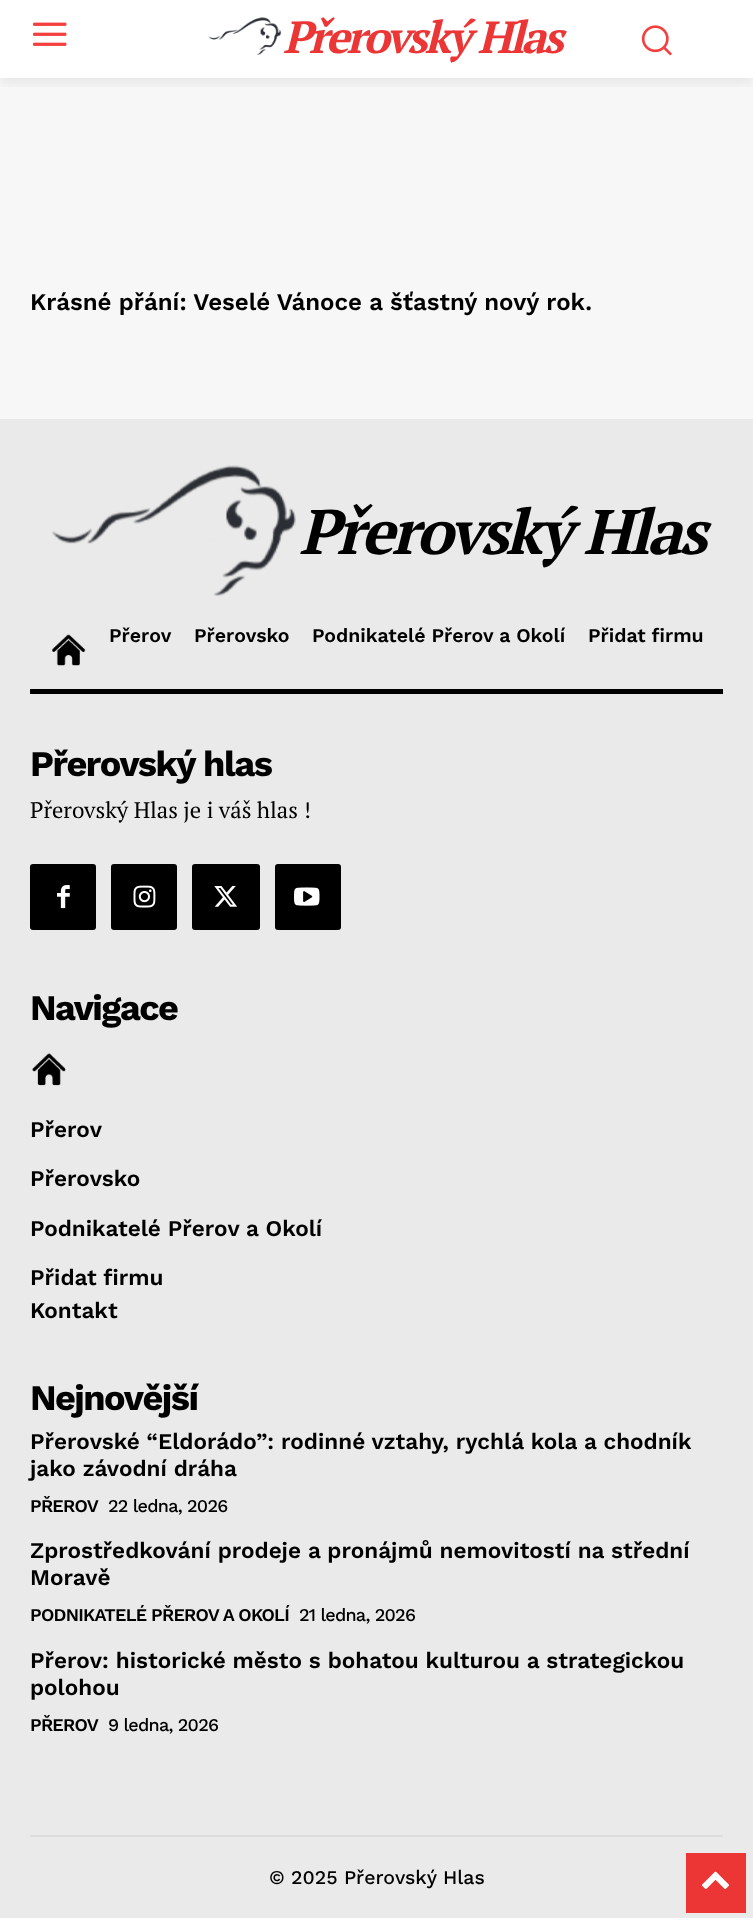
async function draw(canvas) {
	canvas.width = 753;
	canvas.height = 1918;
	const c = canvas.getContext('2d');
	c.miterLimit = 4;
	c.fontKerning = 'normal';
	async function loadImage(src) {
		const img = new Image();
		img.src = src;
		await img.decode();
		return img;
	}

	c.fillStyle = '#f7f7f7';
	c.fillRect(0, 0, 753, 1918);
	c.fillStyle = '#fff';
	c.fillRect(0, 0, 753, 78);
	c.drawImage(await loadImage('img1.png'), 33, 22, 34, 24);
	c.drawImage(await loadImage('img2.png'), 208, 17, 74, 38);
	c.drawImage(await loadImage('img3.png'), 641, 25, 31, 31);
	c.save();
	c.beginPath();
	c.rect(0, 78, 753, 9);
	c.clip();
	c.fillStyle = '#00000017';
	c.filter = 'blur(7.5px)';
	c.beginPath();
	c.rect(0, 3, 753, 78);
	c.fill();
	c.filter = 'none';
	c.restore();
	c.letterSpacing = '-3px';
	c.font = 'italic bold 45px PT Serif';
	c.fillStyle = '#ec3535';
	c.fillText('Přerovský Hlas', 283, 53);
	c.letterSpacing = '0px';
	c.font = '600 24px Work Sans';
	c.fillStyle = '#000';
	c.fillText('Krásné přání: Veselé Vánoce a šťastný nový rok.', 30, 310);
	c.fillStyle = '#eaeaea';
	c.fillRect(0, 419, 753, 1499);
	c.fillStyle = '#000';
	c.fillRect(30, 689, 693, 5);
	c.drawImage(await loadImage('img4.png'), 52, 465, 244, 131);
	c.letterSpacing = '-3px';
	c.font = 'italic bold 63px PT Serif';
	c.fillText('Přerovský Hlas', 299, 554);
	c.drawImage(await loadImage('img5.png'), 52, 634, 34, 32);
	c.letterSpacing = '0px';
	c.font = '600 19.5px Work Sans';
	for (const [text, x, y] of [
		['Přerov', 109, 642],
		['Přerovsko', 194, 642],
		['Podnikatelé Přerov a Okolí', 312, 642],
		['Přidat firmu', 588, 642],
	]) {
		c.fillText(text, x, y);
	}
	c.letterSpacing = '-1.5px';
	c.font = 'bold 36px Work Sans';
	c.fillText('Přerovský hlas', 30, 776);
	c.letterSpacing = '0px';
	c.font = '22.5px PT Serif';
	c.fillText('Přerovský Hlas je i váš hlas !', 30, 818);
	c.beginPath();
	c.roundRect(30, 864, 66, 66, 3);
	c.fill();
	c.drawImage(await loadImage('img6.png'), 57, 885, 13, 24);
	c.beginPath();
	c.roundRect(111, 864, 66, 66, 3);
	c.fill();
	c.drawImage(await loadImage('img7.png'), 133, 885, 23, 23);
	c.beginPath();
	c.roundRect(192, 864, 68, 66, 3);
	c.fill();
	c.drawImage(await loadImage('img8.png'), 214, 886, 23, 21);
	c.beginPath();
	c.roundRect(275, 864, 66, 66, 3);
	c.fill();
	c.drawImage(await loadImage('img9.png'), 294, 887, 26, 19);
	c.letterSpacing = '-1.5px';
	c.font = 'bold 36px Work Sans';
	c.fillText('Navigace', 30, 1020);
	c.drawImage(await loadImage('img10.png'), 32, 1053, 34, 33);
	c.letterSpacing = '0px';
	c.font = '600 22.5px Work Sans';
	for (const [text, x, y] of [
		['Přerov', 30, 1137],
		['Přerovsko', 30, 1186],
		['Podnikatelé Přerov a Okolí', 30, 1236],
		['Přidat firmu', 30, 1285],
		['Kontakt', 30, 1318],
	]) {
		c.fillText(text, x, y);
	}
	c.letterSpacing = '-1.5px';
	c.font = 'bold 36px Work Sans';
	c.fillText('Nejnovější', 30, 1410);
	c.letterSpacing = '0px';
	c.font = '600 22.5px Work Sans';
	c.fillText('Přerovské “Eldorádo”: rodinné vztahy, rychlá kola a chodník', 30, 1449);
	c.fillText('jako závodní dráha', 30, 1476);
	c.letterSpacing = '-0.75px';
	c.font = '600 18px Work Sans';
	c.fillText('PŘEROV', 30, 1512);
	c.font = '500 18px Work Sans';
	c.fillText('22 ledna, 2026', 108, 1512);
	c.letterSpacing = '0px';
	c.font = '600 22.5px Work Sans';
	c.fillText('Zprostředkování prodeje a pronájmů nemovitostí na střední', 30, 1558);
	c.fillText('Moravě', 30, 1585);
	c.letterSpacing = '-0.75px';
	c.font = '600 18px Work Sans';
	c.fillText('PODNIKATELÉ PŘEROV A OKOLÍ', 30, 1621);
	c.font = '500 18px Work Sans';
	c.fillText('21 ledna, 2026', 299, 1621);
	c.letterSpacing = '0px';
	c.font = '600 22.5px Work Sans';
	c.fillText('Přerov: historické město s bohatou kulturou a strategickou', 30, 1668);
	c.fillText('polohou', 30, 1695);
	c.letterSpacing = '-0.75px';
	c.font = '600 18px Work Sans';
	c.fillText('PŘEROV', 30, 1731);
	c.font = '500 18px Work Sans';
	c.fillText('9 ledna, 2026', 108, 1731);
	c.fillStyle = '#ddd';
	c.fillRect(30, 1835, 693, 2);
	c.letterSpacing = '0px';
	c.font = '500 19.5px Work Sans';
	c.fillStyle = '#000';
	c.fillText('© 2025 Přerovský Hlas', 269, 1884);
	c.fillStyle = '#ec3535';
	c.fillRect(686, 1853, 60, 60);
	c.drawImage(await loadImage('img11.png'), 702, 1871, 27, 18);
}

draw(document.querySelector('canvas'));
